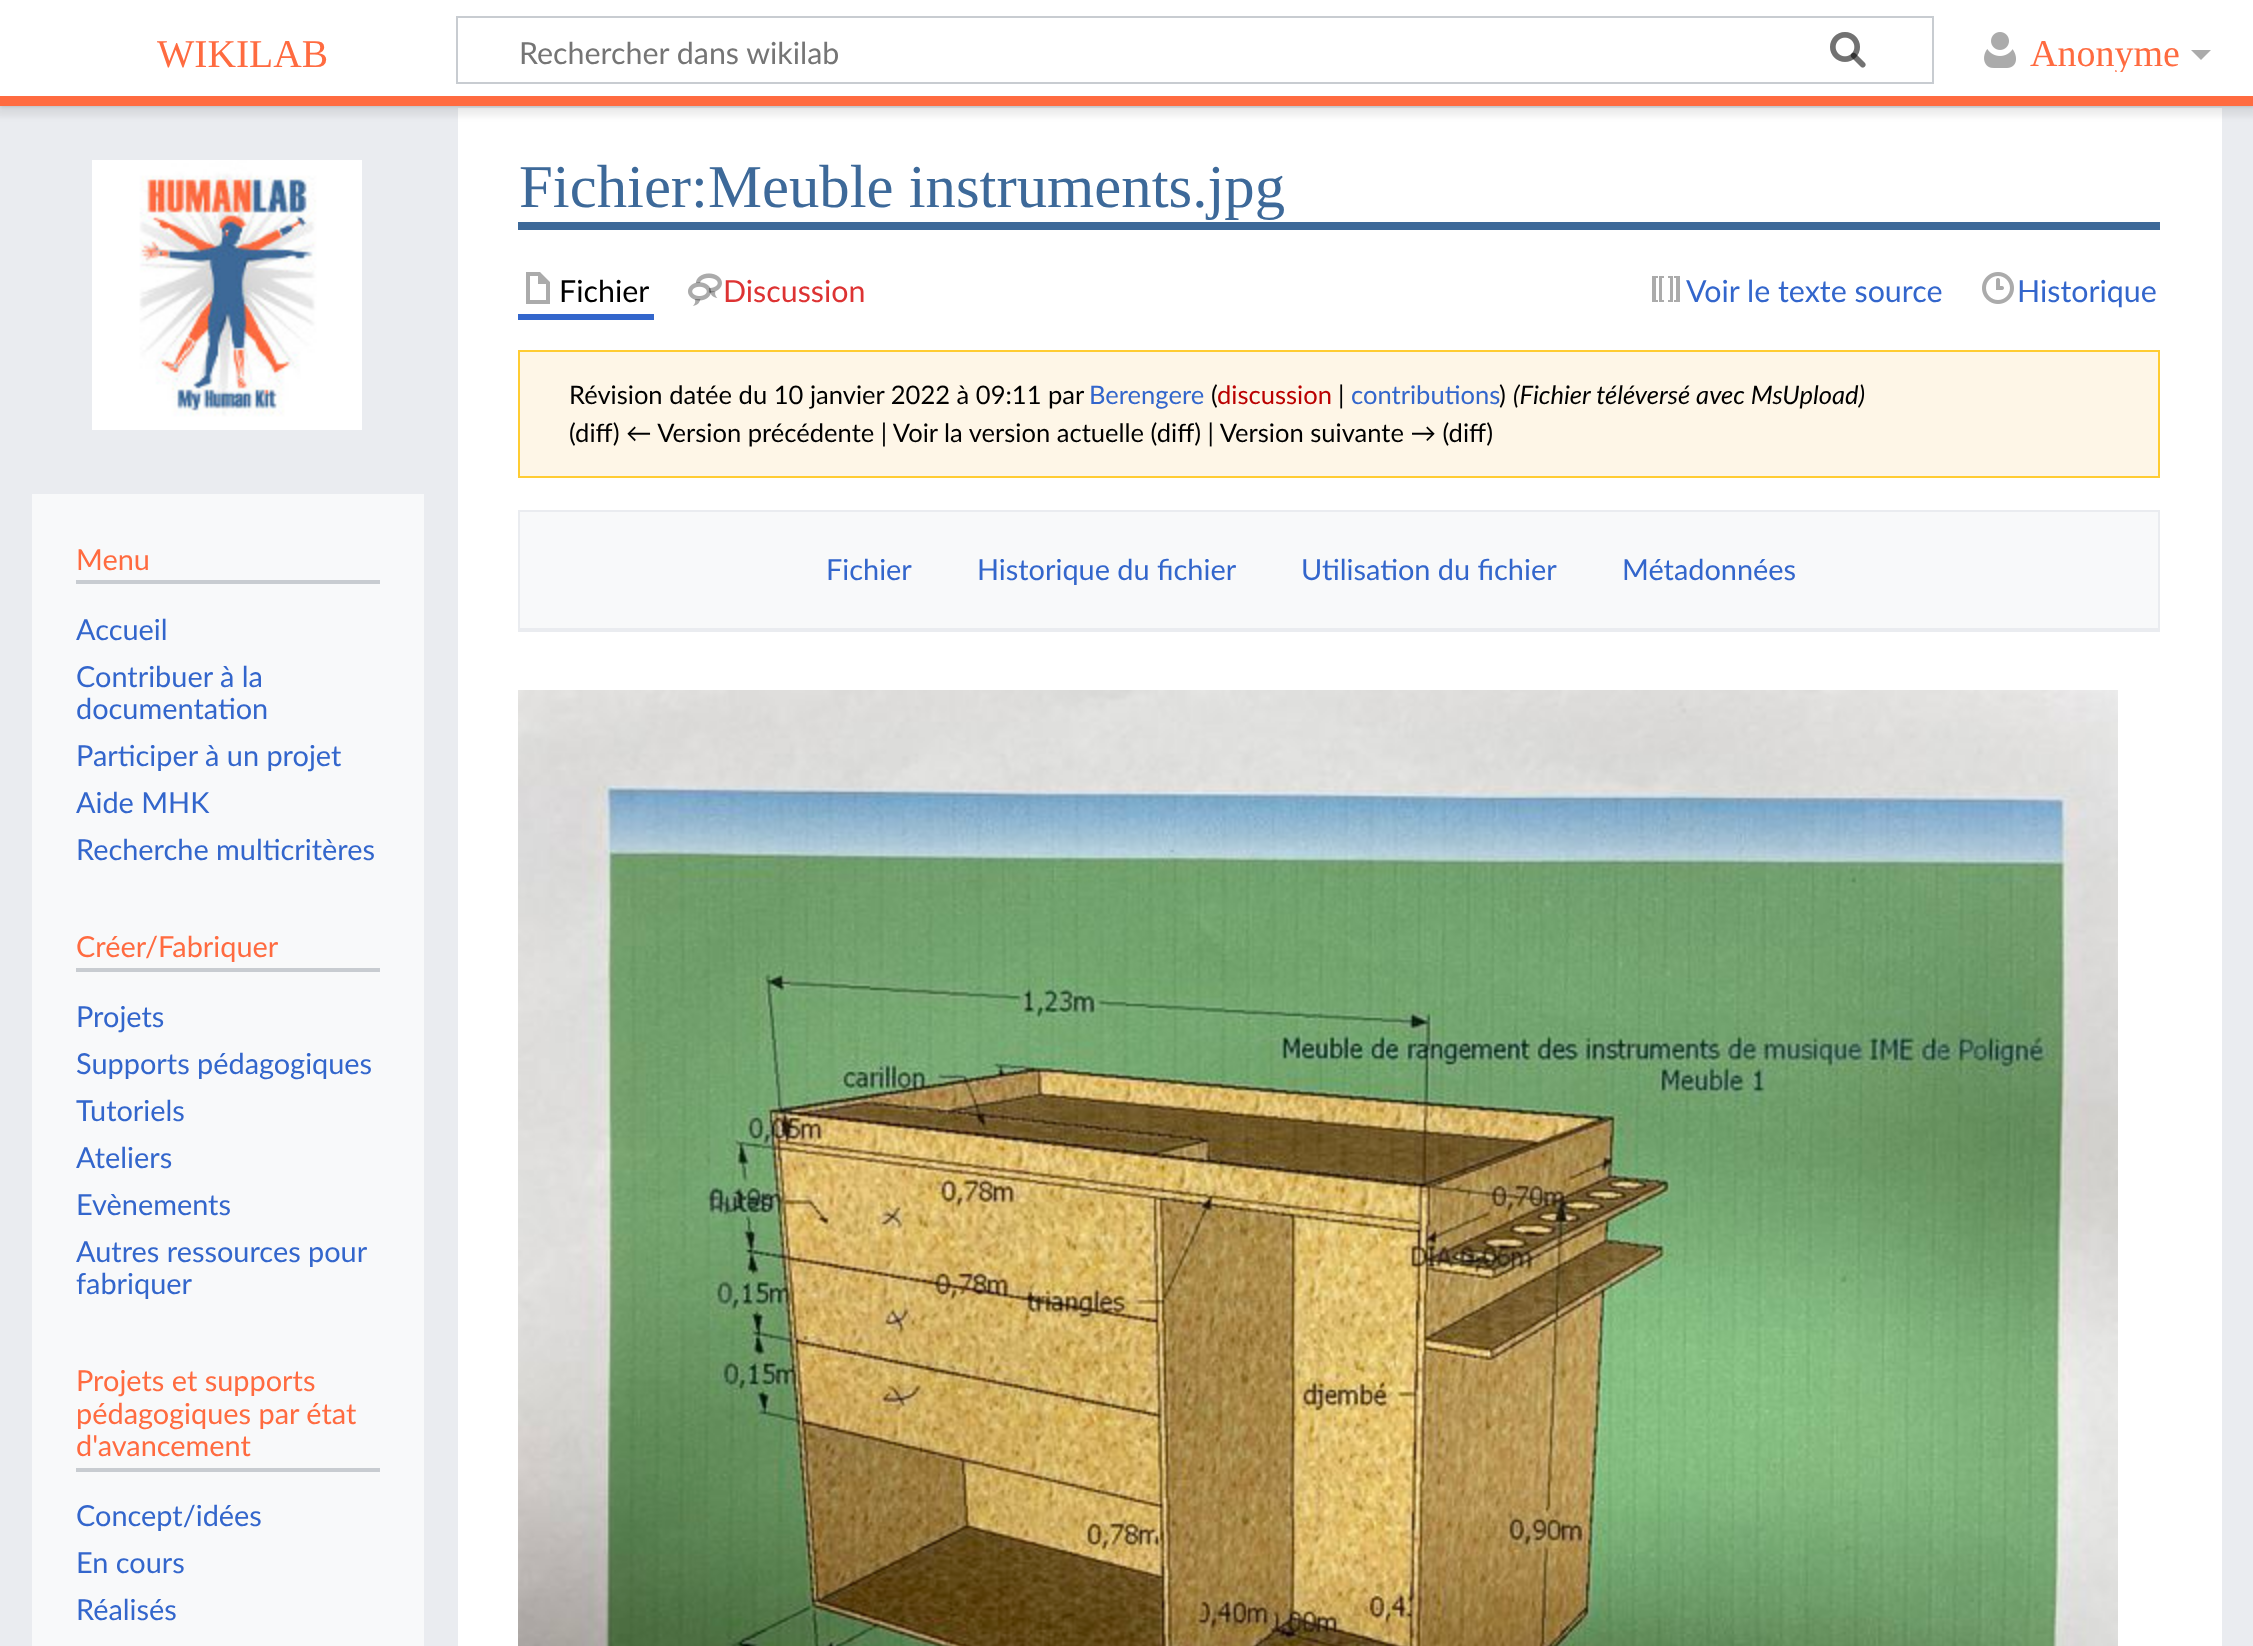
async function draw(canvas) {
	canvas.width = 2253;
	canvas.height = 1646;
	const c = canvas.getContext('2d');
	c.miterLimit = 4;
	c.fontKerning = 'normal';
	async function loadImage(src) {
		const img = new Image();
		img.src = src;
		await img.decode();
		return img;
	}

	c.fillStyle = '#eaecf0';
	c.fillRect(0, 0, 2253, 1646);
	c.fillStyle = '#fff';
	c.fillRect(458, 108, 1764, 1538);
	c.fillStyle = '#00000033';
	c.filter = 'blur(2px)';
	c.beginPath();
	c.rect(0, 96, 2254, 10);
	c.fill();
	c.filter = 'none';
	c.fillStyle = '#00000012';
	c.filter = 'blur(3px)';
	c.beginPath();
	c.rect(-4, 98, 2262, 18);
	c.fill();
	c.filter = 'none';
	c.fillStyle = '#fff';
	c.fillRect(0, 0, 2253, 96);
	c.font = '39.5px Liberation Serif';
	c.fillStyle = '#ff6b40';
	c.fillText('WIKILAB', 157, 67);
	c.strokeStyle = '#c8ccd1';
	c.lineWidth = 2;
	c.strokeRect(457, 17, 1476, 66);
	c.drawImage(await loadImage('img1.png'), 1830, 32, 36, 36);
	c.font = '30.4px Lato';
	c.fillStyle = '#757575';
	c.fillText('Rechercher dans wikilab', 519, 64);
	c.drawImage(await loadImage('img2.png'), 1830, 32, 36, 36);
	c.drawImage(await loadImage('img3.png'), 1984, 32, 32, 36);
	c.save();
	c.beginPath();
	c.rect(2030, 34, 150, 38);
	c.clip();
	c.font = '38px Liberation Serif';
	c.fillStyle = '#ff6b40';
	c.fillText('Anonyme', 2030, 66);
	c.restore();
	c.fillStyle = '#ababab';
	c.beginPath();
	c.moveTo(2211, 50);
	c.lineTo(2201, 60);
	c.lineTo(2191, 50);
	c.closePath();
	c.fill();
	c.fillStyle = '#ff6b40';
	c.fillRect(0, 96, 2253, 10);
	c.fillStyle = '#3d6999';
	c.fillRect(518, 222, 1642, 8);
	c.font = '60.75px Liberation Serif';
	c.fillText('Fichier:Meuble instruments.jpg', 519, 207);
	c.fillStyle = '#36c';
	c.fillRect(518, 314, 136, 6);
	c.fillStyle = '#ababab';
	c.beginPath();
	c.moveTo(526, 272);
	c.lineTo(526, 304);
	c.lineTo(550, 304);
	c.lineTo(550, 282);
	c.lineTo(540, 272);
	c.closePath();
	c.moveTo(530, 276);
	c.lineTo(538, 276);
	c.lineTo(538, 284);
	c.lineTo(546, 284);
	c.lineTo(546, 300);
	c.lineTo(530, 300);
	c.closePath();
	c.fill();
	c.font = '30.4px Lato';
	c.fillStyle = '#000';
	c.fillText('Fichier', 559, 302);
	c.drawImage(await loadImage('img4.png'), 688, 273, 34, 33);
	c.fillStyle = '#d33';
	c.fillText('Discussion', 723, 302);
	c.drawImage(await loadImage('img5.png'), 1652, 276, 28, 26);
	c.fillStyle = '#36c';
	c.fillText('Voir le texte source', 1686, 302);
	c.drawImage(await loadImage('img6.png'), 1982, 272, 32, 32);
	c.fillText('Historique', 2017, 302);
	c.fillStyle = '#fef6e7';
	c.beginPath();
	c.rect(519, 351, 1640, 126);
	c.fill();
	c.strokeStyle = '#fc3';
	c.stroke();
	c.font = '25.55px Lato';
	c.fillStyle = '#000';
	c.fillText('Révision datée du 10 janvier 2022 à 09:11 par', 569, 404);
	c.fillStyle = '#36c';
	c.fillText('Berengere', 1089, 404);
	c.fillStyle = '#000';
	c.fillText('(', 1211, 404);
	c.fillStyle = '#ba0000';
	c.fillText('discussion', 1217, 404);
	c.fillStyle = '#000';
	c.fillText('|', 1338, 404);
	c.fillStyle = '#36c';
	c.fillText('contributions', 1351, 404);
	c.fillStyle = '#000';
	c.fillText(')', 1499, 404);
	c.font = 'italic 25.55px Lato';
	c.fillText('(Fichier téléversé avec MsUpload)', 1513, 404);
	c.font = '25.55px Lato';
	c.fillText('(diff) ← Version précédente | Voir la version actuelle (diff) | Version suivante → (diff)', 569, 442);
	for (const [x, y, w, h, color] of [
		[520, 512, 1638, 116, '#f8f9fa'],
		[518, 510, 1642, 2, '#eaecf0'],
		[2158, 510, 2, 122, '#eaecf0'],
		[518, 628, 1642, 4, '#eaecf0'],
		[518, 510, 2, 122, '#eaecf0'],
	]) {
		c.fillStyle = color;
		c.fillRect(x, y, w, h);
	}
	c.font = '28.9px Lato';
	c.fillStyle = '#36c';
	for (const [text, x, y] of [
		['Fichier', 826, 580],
		['Historique du fichier', 977, 580],
		['Utilisation du fichier', 1301, 580],
		['Métadonnées', 1622, 580],
	]) {
		c.fillText(text, x, y);
	}
	c.drawImage(await loadImage('img7.png'), 518, 690, 1600, 956);
	c.drawImage(await loadImage('img8.png'), 92, 160, 270, 270);
	c.fillStyle = '#f8f9fa';
	c.fillRect(32, 494, 392, 1152);
	c.fillStyle = '#c8ccd1';
	c.fillRect(76, 580, 304, 4);
	c.fillStyle = '#ff6b40';
	c.fillText('Menu', 76, 570);
	c.fillStyle = '#36c';
	for (const [text, x, y] of [
		['Accueil', 76, 640],
		['Contribuer à la', 76, 687],
		['documentation', 76, 719],
		['Participer à un projet', 76, 766],
		['Aide MHK', 76, 813],
		['Recherche multicritères', 76, 860],
	]) {
		c.fillText(text, x, y);
	}
	c.fillStyle = '#c8ccd1';
	c.fillRect(76, 968, 304, 4);
	c.fillStyle = '#ff6b40';
	c.fillText('Créer/Fabriquer', 76, 957);
	c.fillStyle = '#36c';
	for (const [text, x, y] of [
		['Projets', 76, 1027],
		['Supports pédagogiques', 76, 1074],
		['Tutoriels', 76, 1121],
		['Ateliers', 76, 1168],
		['Evènements', 76, 1215],
		['Autres ressources pour', 76, 1262],
		['fabriquer', 76, 1294],
	]) {
		c.fillText(text, x, y);
	}
	c.fillStyle = '#c8ccd1';
	c.fillRect(76, 1468, 304, 4);
	c.fillStyle = '#ff6b40';
	for (const [text, x, y] of [
		['Projets et supports', 76, 1391],
		['pédagogiques par état', 76, 1424],
		['d\'avancement', 76, 1456],
	]) {
		c.fillText(text, x, y);
	}
	c.fillStyle = '#36c';
	for (const [text, x, y] of [
		['Concept/idées', 76, 1526],
		['En cours', 76, 1573],
		['Réalisés', 76, 1620],
	]) {
		c.fillText(text, x, y);
	}
}

draw(document.querySelector('canvas'));
